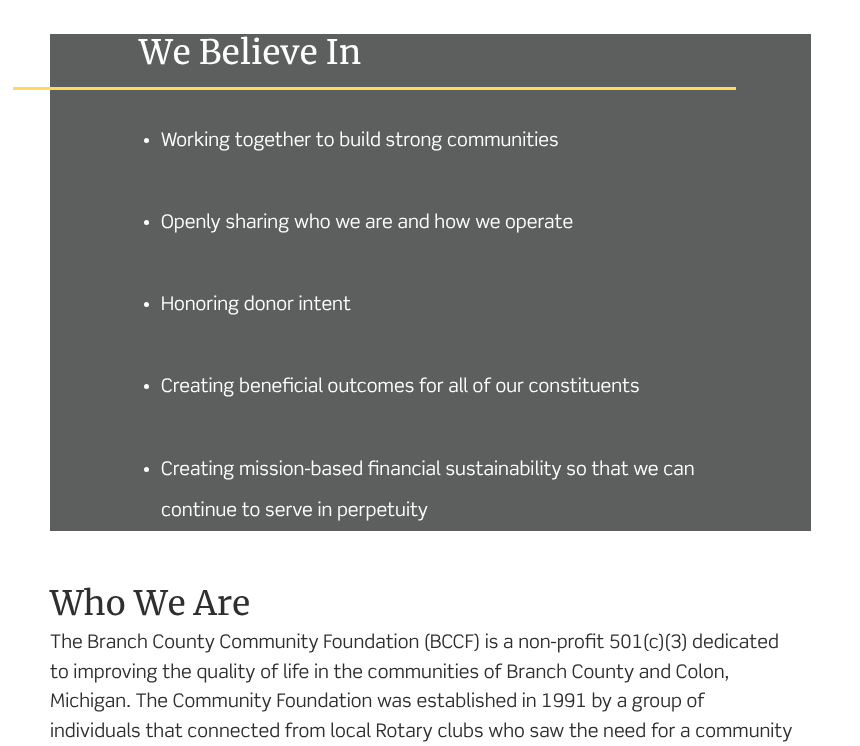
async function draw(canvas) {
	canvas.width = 860;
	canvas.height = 746;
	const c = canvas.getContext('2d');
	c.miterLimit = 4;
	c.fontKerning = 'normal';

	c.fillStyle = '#fff';
	c.fillRect(0, 0, 860, 746);
	c.fillStyle = '#5d5e5e';
	c.fillRect(50, 34, 761, 497);
	c.font = '33.5px Merriweather';
	c.fillStyle = '#fff';
	c.fillText('We Believe In', 139, 64);
	c.fillStyle = '#feda5e';
	c.fillRect(13, 87, 723, 3);
	c.fillStyle = '#fff';
	c.beginPath();
	c.arc(146.5, 140.5, 2.5, 0, 2 * Math.PI);
	c.fill();
	c.font = '18.7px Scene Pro';
	c.fillText('Working together to build strong communities', 161, 146);
	c.beginPath();
	c.arc(146.5, 222.5, 2.5, 0, 2 * Math.PI);
	c.fill();
	c.fillText('Openly sharing who we are and how we operate', 161, 228);
	c.beginPath();
	c.arc(146.5, 304.5, 2.5, 0, 2 * Math.PI);
	c.fill();
	c.fillText('Honoring donor intent', 161, 310);
	c.beginPath();
	c.arc(146.5, 386.5, 2.5, 0, 2 * Math.PI);
	c.fill();
	c.fillText('Creating beneficial outcomes for all of our constituents', 161, 392);
	c.beginPath();
	c.arc(146.5, 469.5, 2.5, 0, 2 * Math.PI);
	c.fill();
	c.fillText('Creating mission-based financial sustainability so that we can', 161, 475);
	c.fillText('continue to serve in perpetuity', 161, 516);
	c.font = '33.5px Merriweather';
	c.fillStyle = '#2f2f2f';
	c.fillText('Who We Are', 50, 615);
	c.font = '18.7px Scene Pro';
	for (const [text, x, y] of [
		['The Branch County Community Foundation (BCCF) is a non-profit 501(c)(3) dedicated', 50, 648],
		['to improving the quality of life in the communities of Branch County and Colon,', 50, 678],
		['Michigan. The Community Foundation was established in 1991 by a group of', 50, 707],
		['individuals that connected from local Rotary clubs who saw the need for a community', 50, 737],
	]) {
		c.fillText(text, x, y);
	}
}

draw(document.querySelector('canvas'));
